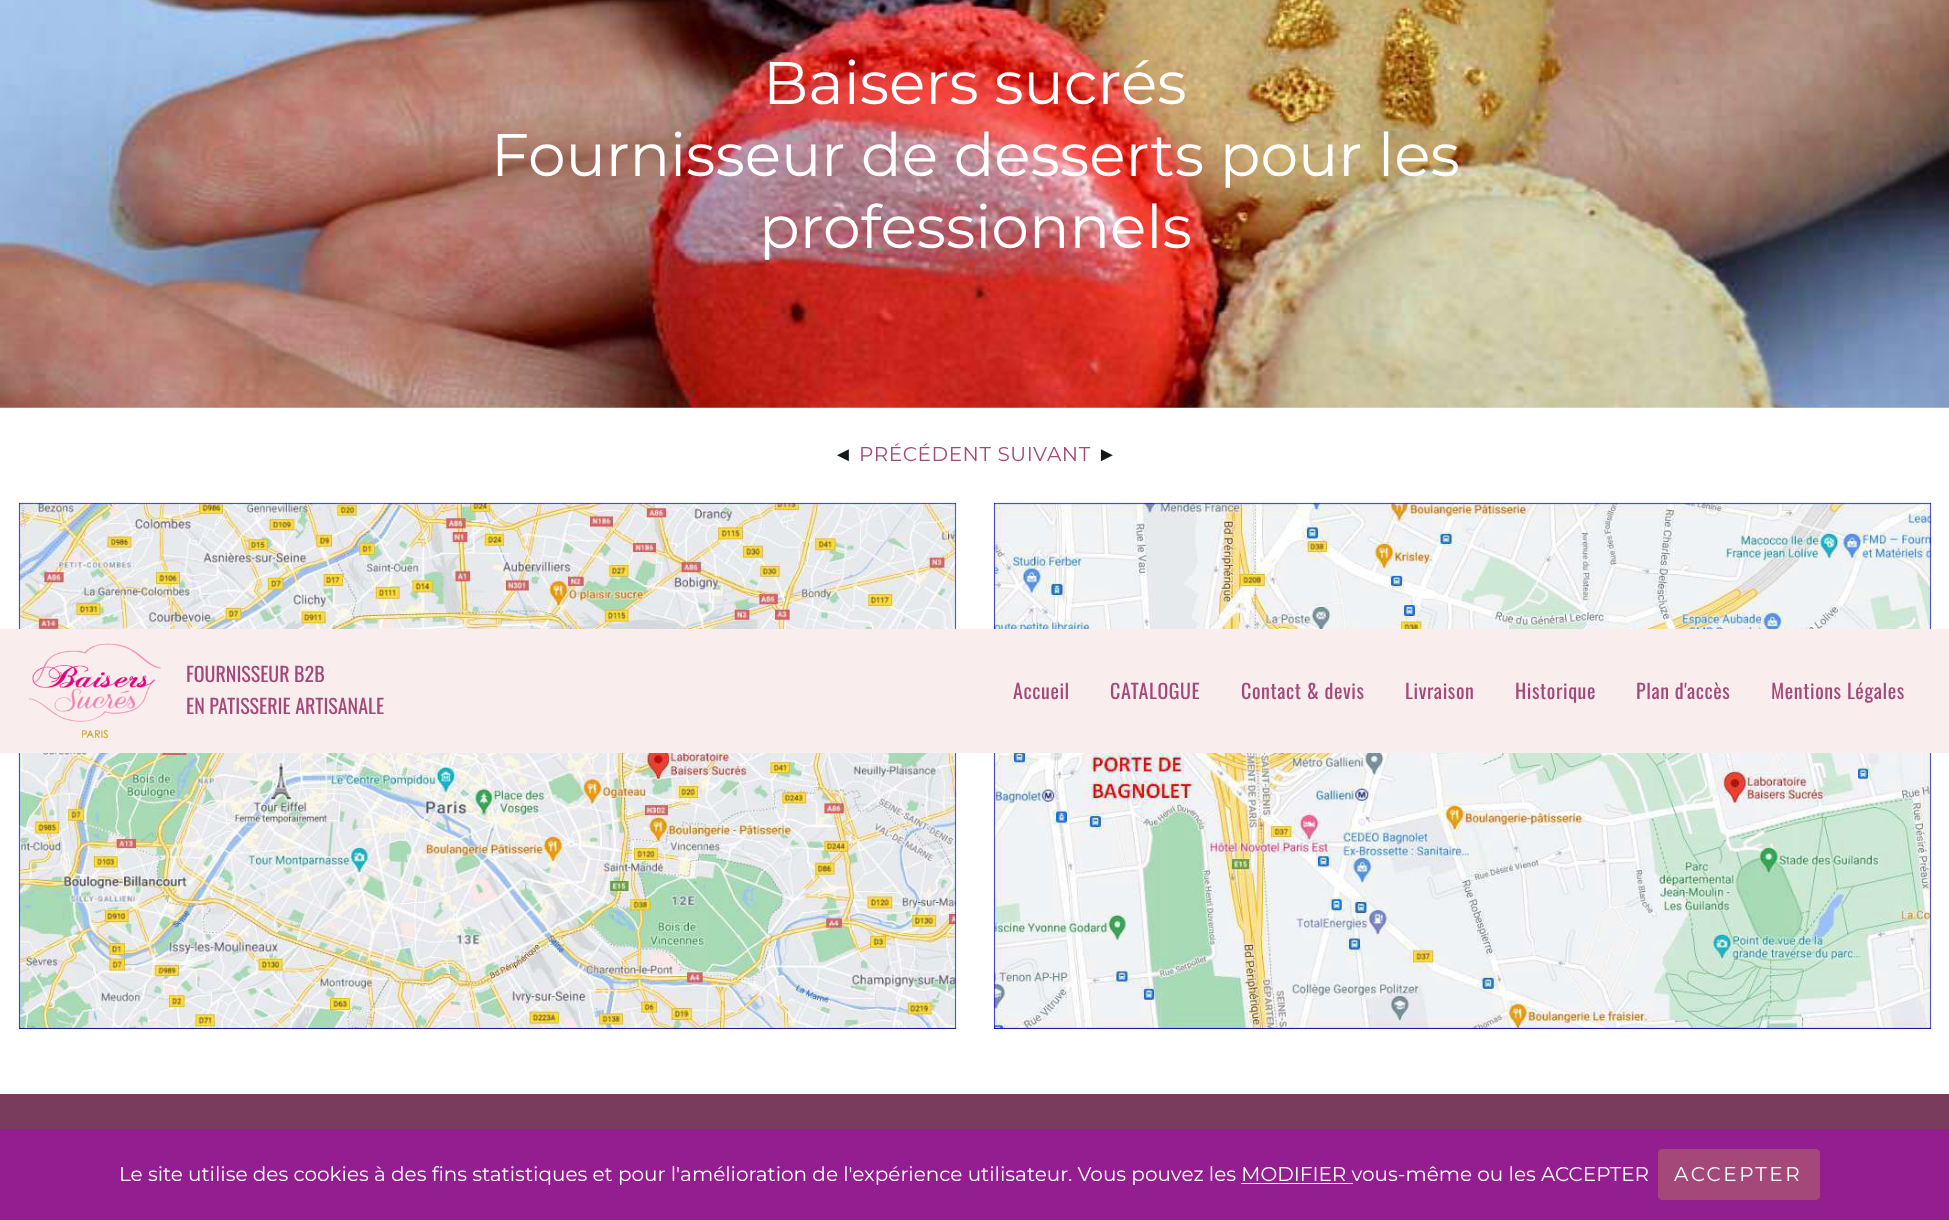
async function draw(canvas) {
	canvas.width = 1949;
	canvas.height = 1220;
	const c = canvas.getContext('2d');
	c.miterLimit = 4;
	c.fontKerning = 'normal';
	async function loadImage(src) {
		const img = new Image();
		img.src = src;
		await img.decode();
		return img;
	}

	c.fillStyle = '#fff';
	c.fillRect(0, 0, 1949, 1220);
	c.drawImage(await loadImage('img1.png'), 0, 0, 1949, 408);
	c.font = '60px Montserrat';
	for (const [text, x, y] of [
		['Baisers sucrés', 763, 104],
		['Fournisseur de desserts pour les', 491, 176],
		['professionnels', 759, 248],
	]) {
		c.fillText(text, x, y);
	}
	c.letterSpacing = '0.6px';
	c.font = '20px Liberation Sans';
	c.fillStyle = '#15181b';
	c.fillText('◄', 833, 461);
	c.font = '20px Montserrat';
	c.fillStyle = '#a34878';
	c.fillText('PRÉCÉDENT SUIVANT', 859, 461);
	c.font = '20px Liberation Sans';
	c.fillStyle = '#15181b';
	c.fillText('►', 1097, 461);
	c.drawImage(await loadImage('img2.png'), 18, 502, 939, 527);
	c.drawImage(await loadImage('img3.png'), 993, 502, 939, 527);
	c.fillStyle = '#f9eded';
	c.fillRect(0, 629, 1949, 124);
	c.drawImage(await loadImage('img4.png'), 28, 643, 133, 95);
	c.letterSpacing = '0px';
	c.font = '20px Oswald';
	c.fillStyle = '#a34878';
	c.fillText('FOURNISSEUR B2B', 186, 682);
	c.fillText('EN PATISSERIE ARTISANALE', 186, 714);
	c.letterSpacing = '0.6px';
	for (const [text, x, y] of [
		['Accueil', 1013, 699],
		['CATALOGUE', 1110, 699],
		['Contact & devis', 1241, 699],
		['Livraison', 1405, 699],
		['Historique', 1515, 699],
		['Plan d\'accès', 1636, 699],
		['Mentions Légales', 1771, 699],
	]) {
		c.fillText(text, x, y);
	}
	c.fillStyle = '#793c5c';
	c.fillRect(0, 1094, 1949, 35);
	c.fillStyle = '#921e90';
	c.fillRect(0, 1129, 1949, 91);
	c.letterSpacing = '0px';
	c.font = '20px Montserrat';
	c.fillStyle = '#fff';
	c.fillText('Le site utilise des cookies à des fins statistiques et pour l\'amélioration de l\'expérience utilisateur. Vous pouvez les MODIFIER vous-même ou les ACCEPTER', 119, 1181);
	c.fillRect(1241, 1183, 112, 1);
	c.fillStyle = '#a34878';
	c.beginPath();
	c.roundRect(1658.5, 1149.5, 161, 50, 3.5);
	c.fill();
	c.strokeStyle = '#a34878';
	c.stroke();
	c.letterSpacing = '2.5px';
	c.fillStyle = '#fff';
	c.fillText('ACCEPTER', 1674, 1181);
}

draw(document.querySelector('canvas'));
